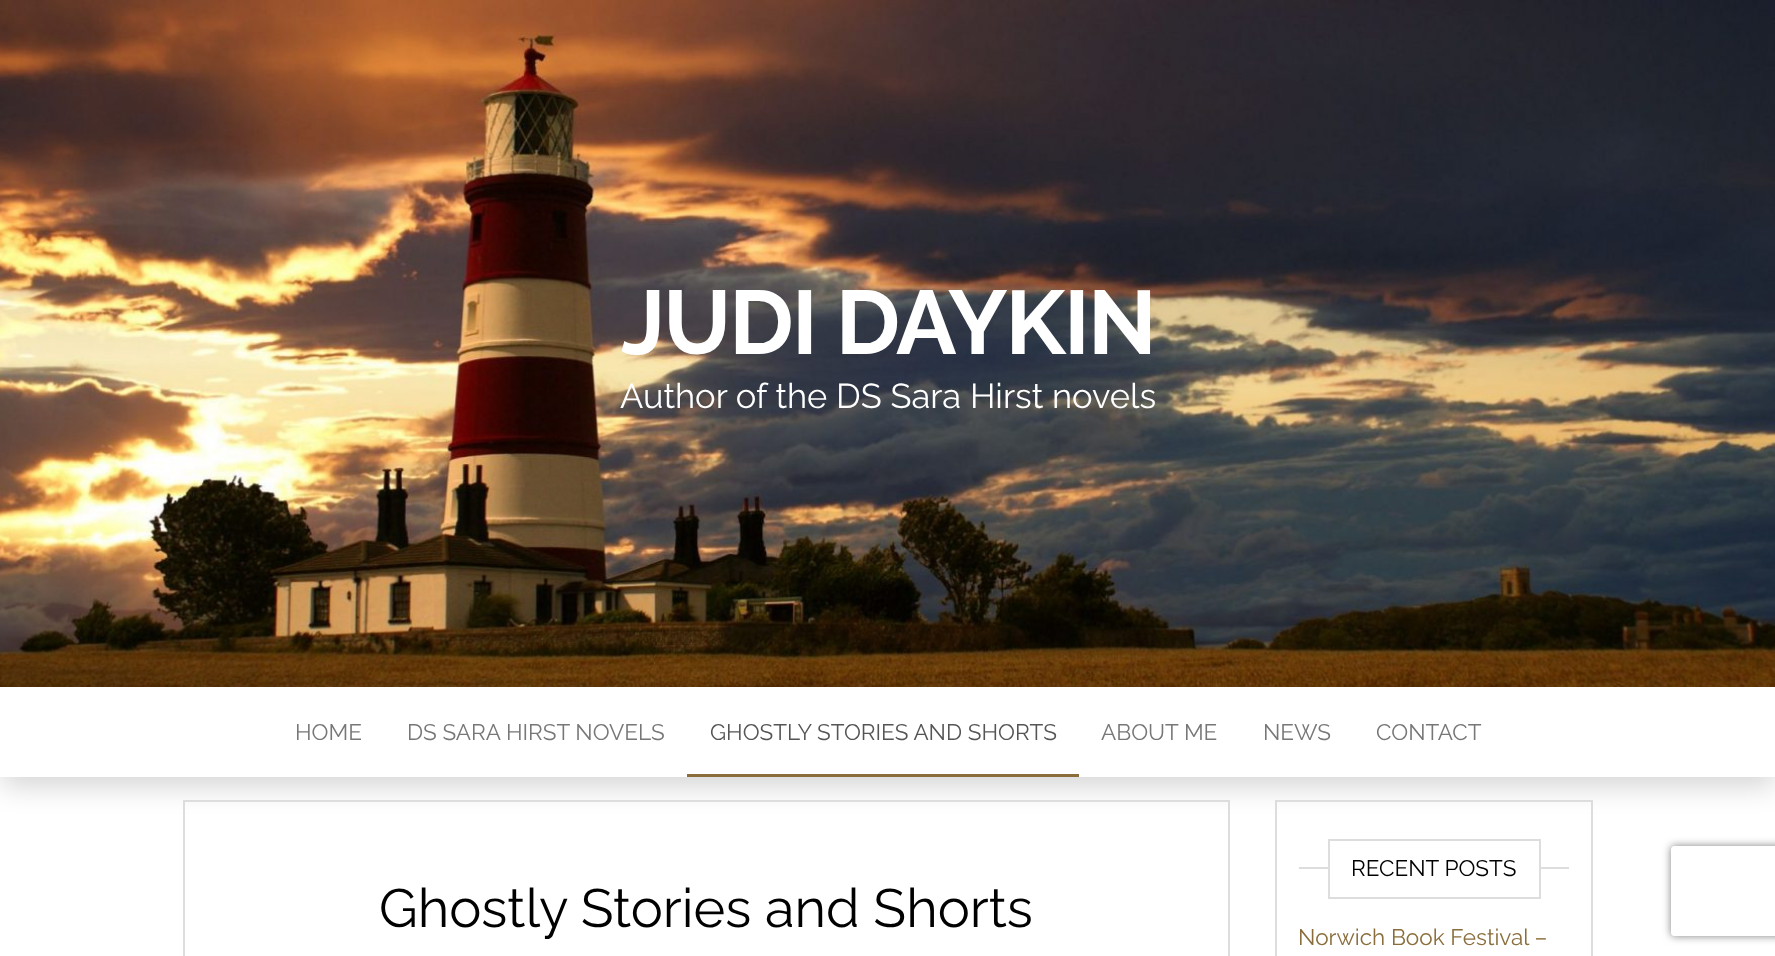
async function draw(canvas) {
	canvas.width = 1775;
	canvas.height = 956;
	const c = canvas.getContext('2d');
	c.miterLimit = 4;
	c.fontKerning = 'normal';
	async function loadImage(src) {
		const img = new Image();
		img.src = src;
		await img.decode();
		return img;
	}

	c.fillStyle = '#fff';
	c.fillRect(0, 0, 1775, 956);
	c.drawImage(await loadImage('img1.png'), 0, 0, 1775, 687);
	c.letterSpacing = '-1.75px';
	c.font = 'bold 90px Raleway';
	c.fillText('JUDI DAYKIN', 621, 354);
	c.letterSpacing = '0px';
	c.font = '34.5px Raleway';
	c.fillText('Author of the DS Sara Hirst novels', 620, 408);
	c.save();
	c.beginPath();
	c.moveTo(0, 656);
	c.lineTo(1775, 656);
	c.lineTo(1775, 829);
	c.lineTo(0, 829);
	c.closePath();
	c.moveTo(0, 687);
	c.lineTo(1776, 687);
	c.lineTo(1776, 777);
	c.lineTo(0, 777);
	c.closePath();
	c.clip('evenodd');
	c.fillStyle = '#0000002b';
	c.filter = 'blur(14px)';
	c.beginPath();
	c.rect(2, 699, 1773, 87);
	c.fill();
	c.filter = 'none';
	c.restore();
	c.font = '22.5px Raleway';
	c.fillStyle = '#777';
	c.fillText('HOME', 295, 740);
	c.fillText('DS SARA HIRST NOVELS', 407, 740);
	c.fillStyle = '#555';
	c.fillText('GHOSTLY STORIES AND SHORTS', 710, 740);
	c.fillStyle = '#8a6d3b';
	c.fillRect(687, 774, 392, 3);
	c.fillStyle = '#777';
	for (const [text, x, y] of [
		['ABOUT ME', 1101, 740],
		['NEWS', 1263, 740],
		['CONTACT', 1376, 740],
	]) {
		c.fillText(text, x, y);
	}
	c.strokeStyle = '#ddd';
	c.lineWidth = 2;
	c.strokeRect(184, 801, 1045, 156);
	c.font = '54px Raleway';
	c.fillStyle = '#000';
	c.fillText('Ghostly Stories and Shorts', 379, 927);
	c.strokeRect(1276, 801, 316, 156);
	c.fillStyle = '#ddd';
	c.fillRect(1299, 867, 270, 2);
	c.fillStyle = '#fff';
	c.fillRect(1330, 867, 209, 2);
	c.strokeRect(1329, 840, 211, 58);
	c.font = '22.5px Raleway';
	c.fillStyle = '#000';
	c.fillText('RECENT POSTS', 1351, 876);
	c.fillStyle = '#8a6d3b';
	c.fillText('Norwich Book Festival –', 1298, 945);
	c.save();
	c.beginPath();
	c.moveTo(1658, 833);
	c.lineTo(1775, 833);
	c.lineTo(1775, 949);
	c.lineTo(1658, 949);
	c.closePath();
	c.moveTo(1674, 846);
	c.lineTo(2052, 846);
	c.bezierCurveTo(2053.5, 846, 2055, 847.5, 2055, 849);
	c.lineTo(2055, 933);
	c.bezierCurveTo(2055, 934.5, 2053.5, 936, 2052, 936);
	c.lineTo(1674, 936);
	c.bezierCurveTo(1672.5, 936, 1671, 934.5, 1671, 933);
	c.lineTo(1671, 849);
	c.bezierCurveTo(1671, 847.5, 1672.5, 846, 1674, 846);
	c.closePath();
	c.clip('evenodd');
	c.fillStyle = '#808080';
	c.filter = 'blur(4px)';
	c.beginPath();
	c.roundRect(1671, 846, 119, 90, 3);
	c.fill();
	c.filter = 'none';
	c.restore();
}

draw(document.querySelector('canvas'));
